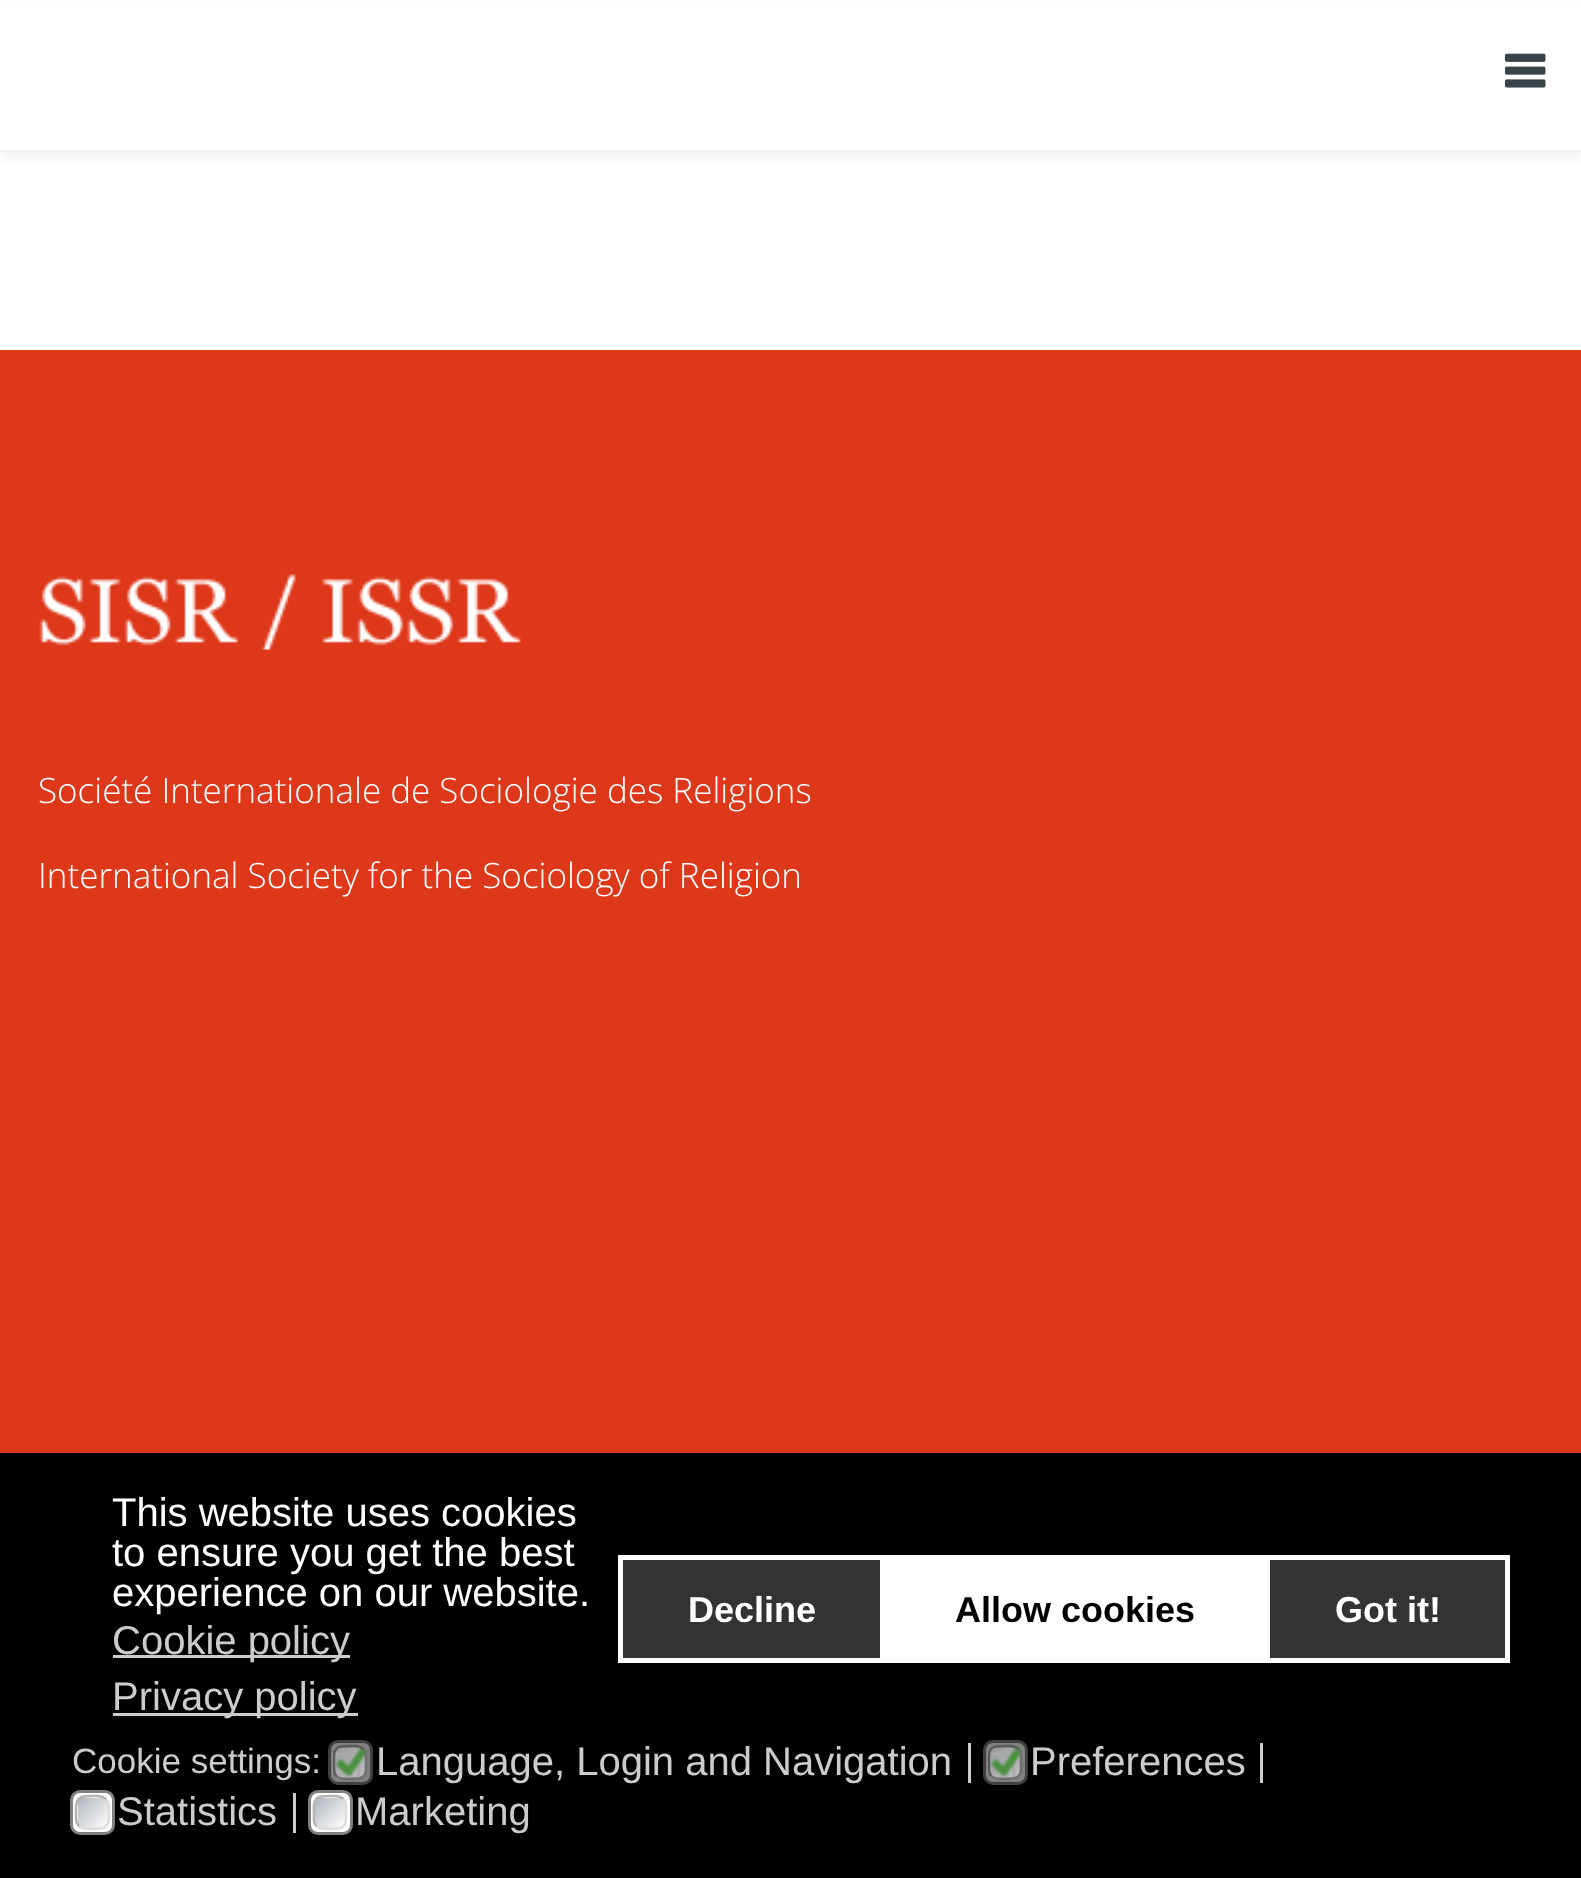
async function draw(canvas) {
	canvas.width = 1581;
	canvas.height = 1878;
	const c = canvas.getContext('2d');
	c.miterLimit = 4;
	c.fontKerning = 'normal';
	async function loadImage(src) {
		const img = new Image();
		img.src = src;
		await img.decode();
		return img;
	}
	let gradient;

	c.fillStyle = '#fff';
	c.fillRect(0, 0, 1581, 1878);
	c.fillStyle = '#0000000d';
	c.filter = 'blur(4px)';
	c.beginPath();
	c.rect(0, 8, 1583, 150);
	c.fill();
	c.filter = 'none';
	c.fillStyle = '#fff';
	c.fillRect(0, 5, 1581, 145);
	c.drawImage(await loadImage('img1.png'), 1505, 53, 41, 35);
	c.fillStyle = '#de381b';
	c.fillRect(0, 350, 1581, 1103);
	c.drawImage(await loadImage('img2.png'), 39, 574, 482, 76);
	c.font = '300 35px Open Sans';
	c.fillStyle = '#fff';
	c.fillText('Société Internationale de Sociologie des Religions', 38, 803);
	c.fillText('International Society for the Sociology of Religion', 38, 888);
	c.fillStyle = '#000';
	c.fillRect(0, 1453, 1581, 425);
	c.font = '40px Liberation Sans';
	c.fillStyle = '#fff';
	for (const [text, x, y] of [
		['This website uses cookies', 112, 1526],
		['to ensure you get the best', 112, 1566],
		['experience on our website.', 112, 1606],
	]) {
		c.fillText(text, x, y);
	}
	c.fillStyle = '#ccc';
	c.fillRect(113, 1655, 237, 3);
	c.fillText('Cookie policy', 112, 1654);
	c.fillRect(113, 1713, 245, 3);
	c.fillText('Privacy policy', 112, 1710);
	c.fillStyle = '#333';
	c.beginPath();
	c.rect(620.5, 1557.5, 262, 103);
	c.fill();
	c.strokeStyle = '#fff';
	c.lineWidth = 5;
	c.stroke();
	c.font = 'bold 36px Liberation Sans';
	c.fillStyle = '#fff';
	c.fillText('Decline', 688, 1622);
	c.fillRect(885, 1555, 380, 108);
	c.fillStyle = '#000';
	c.fillText('Allow cookies', 955, 1622);
	c.fillStyle = '#333';
	c.beginPath();
	c.rect(1267.5, 1557.5, 240, 103);
	c.fill();
	c.stroke();
	c.fillStyle = '#fff';
	c.fillText('Got it!', 1335, 1622);
	c.font = '35px Liberation Sans';
	c.fillStyle = '#ccc';
	c.fillText('Cookie settings:', 72, 1773);
	c.fillStyle = '#808080';
	c.beginPath();
	c.roundRect(329.5, 1741.5, 42, 42, 8.5);
	c.fill();
	c.strokeStyle = '#404040';
	c.lineWidth = 3;
	c.stroke();
	c.drawImage(await loadImage('img3.png'), 332, 1745, 36, 35);
	c.beginPath();
	c.moveTo(363.5, 1749);
	c.bezierCurveTo(367, 1752, 366, 1756, 366, 1760);
	c.bezierCurveTo(366, 1766.5, 368, 1777, 359, 1778.5);
	c.lineTo(350, 1779);
	c.bezierCurveTo(345.5, 1779, 340, 1780, 336.5, 1776);
	c.strokeStyle = '#6e6f6f';
	c.lineWidth = 2.5;
	c.stroke();
	c.beginPath();
	c.moveTo(336.5, 1776);
	c.bezierCurveTo(333, 1773, 334, 1769, 334, 1765);
	c.bezierCurveTo(334, 1758.5, 332, 1748, 341, 1746.5);
	c.lineTo(350, 1746);
	c.bezierCurveTo(354.5, 1746, 360, 1745, 363.5, 1749);
	c.strokeStyle = '#5a5a5a';
	c.stroke();
	c.fillStyle = '#ccc';
	c.fillRect(968, 1743, 3, 40);
	c.font = '40px Liberation Sans';
	c.fillText('Language, Login and Navigation', 376, 1775);
	c.fillStyle = '#808080';
	c.beginPath();
	c.roundRect(984.5, 1741.5, 42, 42, 8.5);
	c.fill();
	c.strokeStyle = '#404040';
	c.lineWidth = 3;
	c.stroke();
	c.drawImage(await loadImage('img4.png'), 987, 1745, 35, 35);
	c.beginPath();
	c.moveTo(1018.5, 1749);
	c.bezierCurveTo(1022, 1752, 1021, 1756, 1021, 1760);
	c.bezierCurveTo(1021, 1766.5, 1023, 1777, 1014, 1778.5);
	c.lineTo(1005, 1779);
	c.bezierCurveTo(1000.5, 1779, 995, 1780, 991.5, 1776);
	c.strokeStyle = '#6e6f6f';
	c.lineWidth = 2.5;
	c.stroke();
	c.beginPath();
	c.moveTo(991.5, 1776);
	c.bezierCurveTo(988, 1773, 989, 1769, 989, 1765);
	c.bezierCurveTo(989, 1758.5, 987, 1748, 996, 1746.5);
	c.lineTo(1005, 1746);
	c.bezierCurveTo(1009.5, 1746, 1015, 1745, 1018.5, 1749);
	c.strokeStyle = '#5a5a5a';
	c.stroke();
	c.fillStyle = '#ccc';
	c.fillRect(1260, 1743, 3, 40);
	c.fillText('Preferences', 1030, 1775);
	c.fillStyle = '#fff';
	c.beginPath();
	c.roundRect(71.5, 1791.5, 42, 42, 8.5);
	c.fill();
	c.strokeStyle = '#808080';
	c.lineWidth = 3;
	c.stroke();
	c.save();
	c.beginPath();
	c.roundRect(75, 1795, 35, 35, 10);
	c.clip();
	gradient = c.createLinearGradient(78, 1798, 108, 1828);
	gradient.addColorStop(0, '#b1b6be');
	gradient.addColorStop(1, '#fff');
	c.fillStyle = gradient;
	c.fillRect(78, 1798, 30, 30);
	c.restore();
	c.beginPath();
	c.moveTo(106, 1799);
	c.bezierCurveTo(109.5, 1802, 109, 1806, 109, 1810);
	c.bezierCurveTo(109, 1816.5, 110.5, 1827, 101.5, 1828.5);
	c.lineTo(92.5, 1829);
	c.bezierCurveTo(88, 1829, 82.5, 1830, 79, 1826);
	c.strokeStyle = '#dcddde';
	c.lineWidth = 2.5;
	c.stroke();
	c.beginPath();
	c.moveTo(79, 1826);
	c.bezierCurveTo(75.5, 1823, 76, 1819, 76, 1815);
	c.bezierCurveTo(76, 1808.5, 74.5, 1798, 83.5, 1796.5);
	c.lineTo(92.5, 1796);
	c.bezierCurveTo(97, 1796, 102.5, 1795, 106, 1799);
	c.strokeStyle = '#b3b3b3';
	c.stroke();
	c.fillStyle = '#ccc';
	c.fillRect(293, 1793, 3, 40);
	c.fillText('Statistics', 117, 1825);
	c.fillStyle = '#fff';
	c.beginPath();
	c.roundRect(309.5, 1791.5, 42, 42, 8.5);
	c.fill();
	c.strokeStyle = '#808080';
	c.lineWidth = 3;
	c.stroke();
	c.save();
	c.beginPath();
	c.roundRect(313, 1795, 35, 35, 10);
	c.clip();
	gradient = c.createLinearGradient(315, 1798, 345, 1828);
	gradient.addColorStop(0, '#b1b6be');
	gradient.addColorStop(1, '#fff');
	c.fillStyle = gradient;
	c.fillRect(315, 1798, 30, 30);
	c.restore();
	c.beginPath();
	c.moveTo(343.5, 1799);
	c.bezierCurveTo(347, 1802, 346, 1806, 346, 1810);
	c.bezierCurveTo(346, 1816.5, 348, 1827, 339, 1828.5);
	c.lineTo(330, 1829);
	c.bezierCurveTo(325.5, 1829, 320, 1830, 316.5, 1826);
	c.strokeStyle = '#dcddde';
	c.lineWidth = 2.5;
	c.stroke();
	c.beginPath();
	c.moveTo(316.5, 1826);
	c.bezierCurveTo(313, 1823, 314, 1819, 314, 1815);
	c.bezierCurveTo(314, 1808.5, 312, 1798, 321, 1796.5);
	c.lineTo(330, 1796);
	c.bezierCurveTo(334.5, 1796, 340, 1795, 343.5, 1799);
	c.strokeStyle = '#b3b3b3';
	c.stroke();
	c.fillStyle = '#ccc';
	c.fillText('Marketing', 355, 1825);
}

draw(document.querySelector('canvas'));
